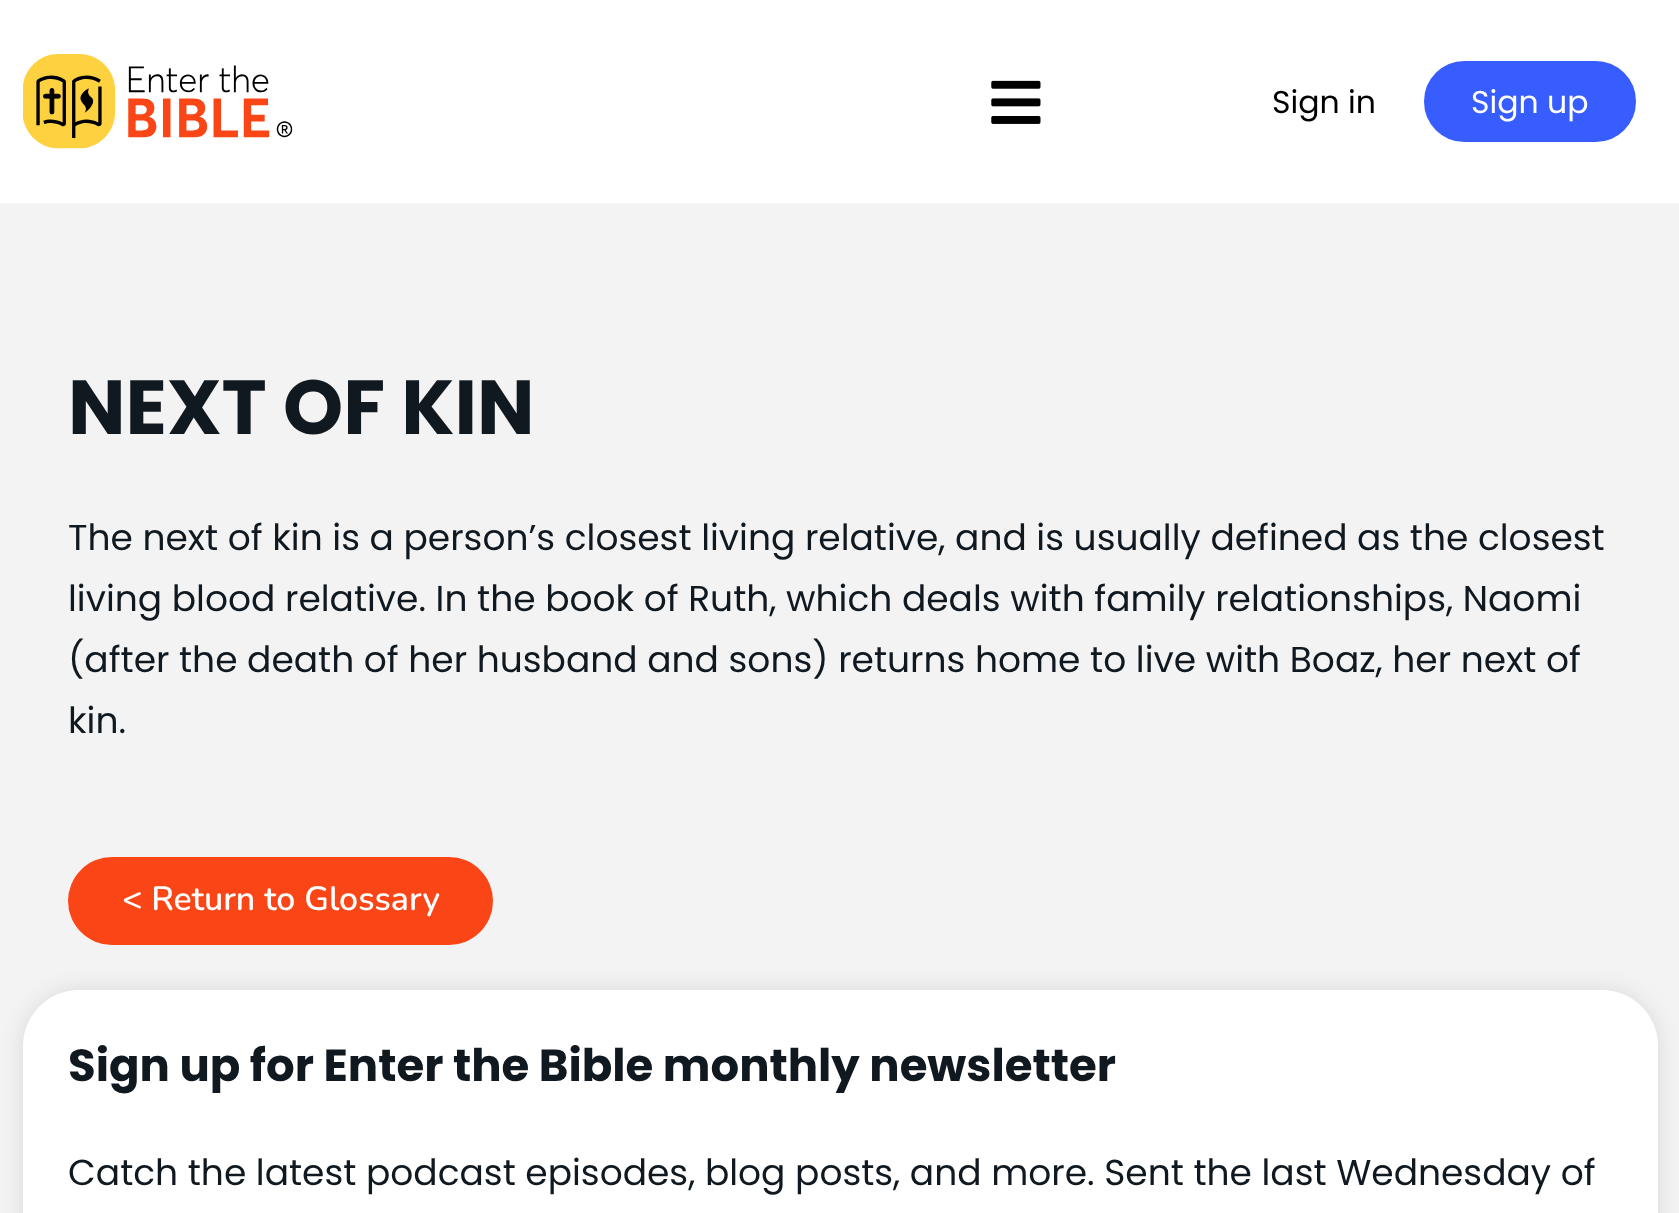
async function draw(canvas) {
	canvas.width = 1679;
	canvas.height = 1213;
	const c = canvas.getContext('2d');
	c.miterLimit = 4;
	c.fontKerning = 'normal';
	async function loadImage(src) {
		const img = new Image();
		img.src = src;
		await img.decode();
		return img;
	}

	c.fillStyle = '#f3f3f3';
	c.fillRect(0, 0, 1679, 1213);
	c.fillStyle = '#fff';
	c.fillRect(0, 0, 1679, 203);
	c.drawImage(await loadImage('img1.png'), 23, 54, 270, 95);
	c.drawImage(await loadImage('img2.png'), 991, 80, 50, 44);
	c.font = '31.5px Poppins';
	c.fillStyle = '#000';
	c.fillText('Sign in', 1272, 113);
	c.fillStyle = '#385dff';
	c.beginPath();
	c.roundRect(1425, 62, 210, 79, 39.5);
	c.fill();
	c.strokeStyle = '#385dff';
	c.lineWidth = 2;
	c.stroke();
	c.fillStyle = '#fff';
	c.fillText('Sign up', 1471, 113);
	c.font = 'bold 76.5px Poppins';
	c.fillStyle = '#101820';
	c.fillText('NEXT OF KIN', 68, 434);
	c.font = '36px Poppins';
	for (const [text, x, y] of [
		['The next of kin is a person’s closest living relative, and is usually defined as the closest', 68, 550],
		['living blood relative. In the book of Ruth, which deals with family relationships, Naomi', 68, 611],
		['(after the death of her husband and sons) returns home to live with Boaz, her next of', 68, 672],
		['kin.', 68, 733],
	]) {
		c.fillText(text, x, y);
	}
	c.fillStyle = '#fa4616';
	c.beginPath();
	c.roundRect(68, 857, 425, 88, 44);
	c.fill();
	c.font = '600 33.75px Nunito';
	c.fillStyle = '#fff';
	c.fillText('< Return to Glossary', 122, 910);
	c.fillStyle = '#0000001a';
	c.filter = 'blur(11px)';
	c.beginPath();
	c.roundRect(23, 990, 1635, 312, 56);
	c.fill();
	c.filter = 'none';
	c.fillStyle = '#fff';
	c.beginPath();
	c.roundRect(23, 990, 1635, 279, 56);
	c.fill();
	c.font = 'bold 45px Poppins';
	c.fillStyle = '#101820';
	c.fillText('Sign up for Enter the Bible monthly newsletter', 68, 1081);
	c.font = '36px Poppins';
	c.fillText('Catch the latest podcast episodes, blog posts, and more. Sent the last Wednesday of', 68, 1185);
}

draw(document.querySelector('canvas'));
